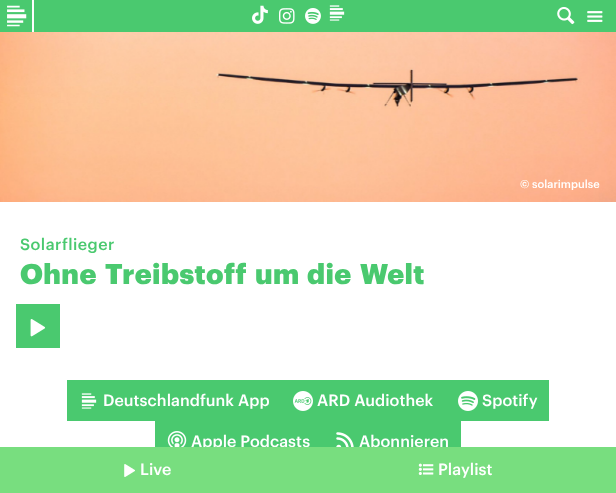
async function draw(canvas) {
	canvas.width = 616;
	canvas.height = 493;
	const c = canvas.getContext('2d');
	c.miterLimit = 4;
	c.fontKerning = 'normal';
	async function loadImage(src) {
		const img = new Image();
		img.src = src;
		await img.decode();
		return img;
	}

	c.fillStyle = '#fff';
	c.fillRect(0, 0, 616, 493);
	c.fillStyle = '#4ac96f';
	c.fillRect(0, 0, 616, 32);
	c.fillStyle = '#fefefe';
	c.fillRect(32, 0, 2, 32);
	c.drawImage(await loadImage('img1.png'), 7, 5, 20, 22);
	c.drawImage(await loadImage('img2.png'), 252, 5, 16, 19);
	c.drawImage(await loadImage('img3.png'), 279, 8, 16, 16);
	c.drawImage(await loadImage('img4.png'), 305, 8, 16, 16);
	c.drawImage(await loadImage('img5.png'), 329, 5, 16, 16);
	c.drawImage(await loadImage('img6.png'), 557, 6, 18, 19);
	c.drawImage(await loadImage('img7.png'), 587, 11, 16, 11);
	c.drawImage(await loadImage('img8.png'), 0, 32, 616, 170);
	c.font = '500 11px Graphik';
	c.fillStyle = '#fff';
	c.fillText('© solarimpulse', 520, 188);
	c.letterSpacing = '0.4px';
	c.font = '500 16px Graphik';
	c.fillStyle = '#4ac96f';
	c.fillText('Solarflieger', 20, 250);
	c.font = '800 28px Graphik';
	for (const [text, x, y] of [
		['Ohne', 20, 284],
		['Treibstoff', 105, 284],
		['um', 255, 284],
		['die', 307, 284],
		['Welt', 360, 284],
	]) {
		c.fillText(text, x, y);
	}
	c.fillRect(16, 304, 44, 44);
	c.drawImage(await loadImage('img9.png'), 30, 319, 16, 18);
	c.fillRect(67, 380, 482, 41);
	c.drawImage(await loadImage('img5.png'), 81, 393, 16, 16);
	c.letterSpacing = '0px';
	c.font = '500 16px Graphik';
	c.fillStyle = '#fff';
	c.fillText('Deutschlandfunk App', 103, 406);
	c.drawImage(await loadImage('img10.png'), 293, 391, 20, 20);
	c.fillText('ARD Audiothek', 317, 406);
	c.drawImage(await loadImage('img11.png'), 458, 391, 20, 20);
	c.fillText('Spotify', 482, 406);
	c.fillStyle = '#4ac96f';
	c.fillRect(155, 421, 306, 26);
	c.drawImage(await loadImage('img12.png'), 167, 431, 20, 16);
	c.fillStyle = '#fff';
	c.fillText('Apple Podcasts', 191, 447);
	c.drawImage(await loadImage('img13.png'), 336, 432, 18, 15);
	c.fillText('Abonnieren', 359, 447);
	c.fillStyle = '#78de7f';
	c.fillRect(0, 447, 616, 46);
	c.drawImage(await loadImage('img14.png'), 124, 464, 11, 13);
	c.fillStyle = '#fff';
	c.fillText('Live', 140, 475);
	c.drawImage(await loadImage('img15.png'), 418, 463, 16, 12);
	c.fillText('Playlist', 438, 475);
}

draw(document.querySelector('canvas'));
